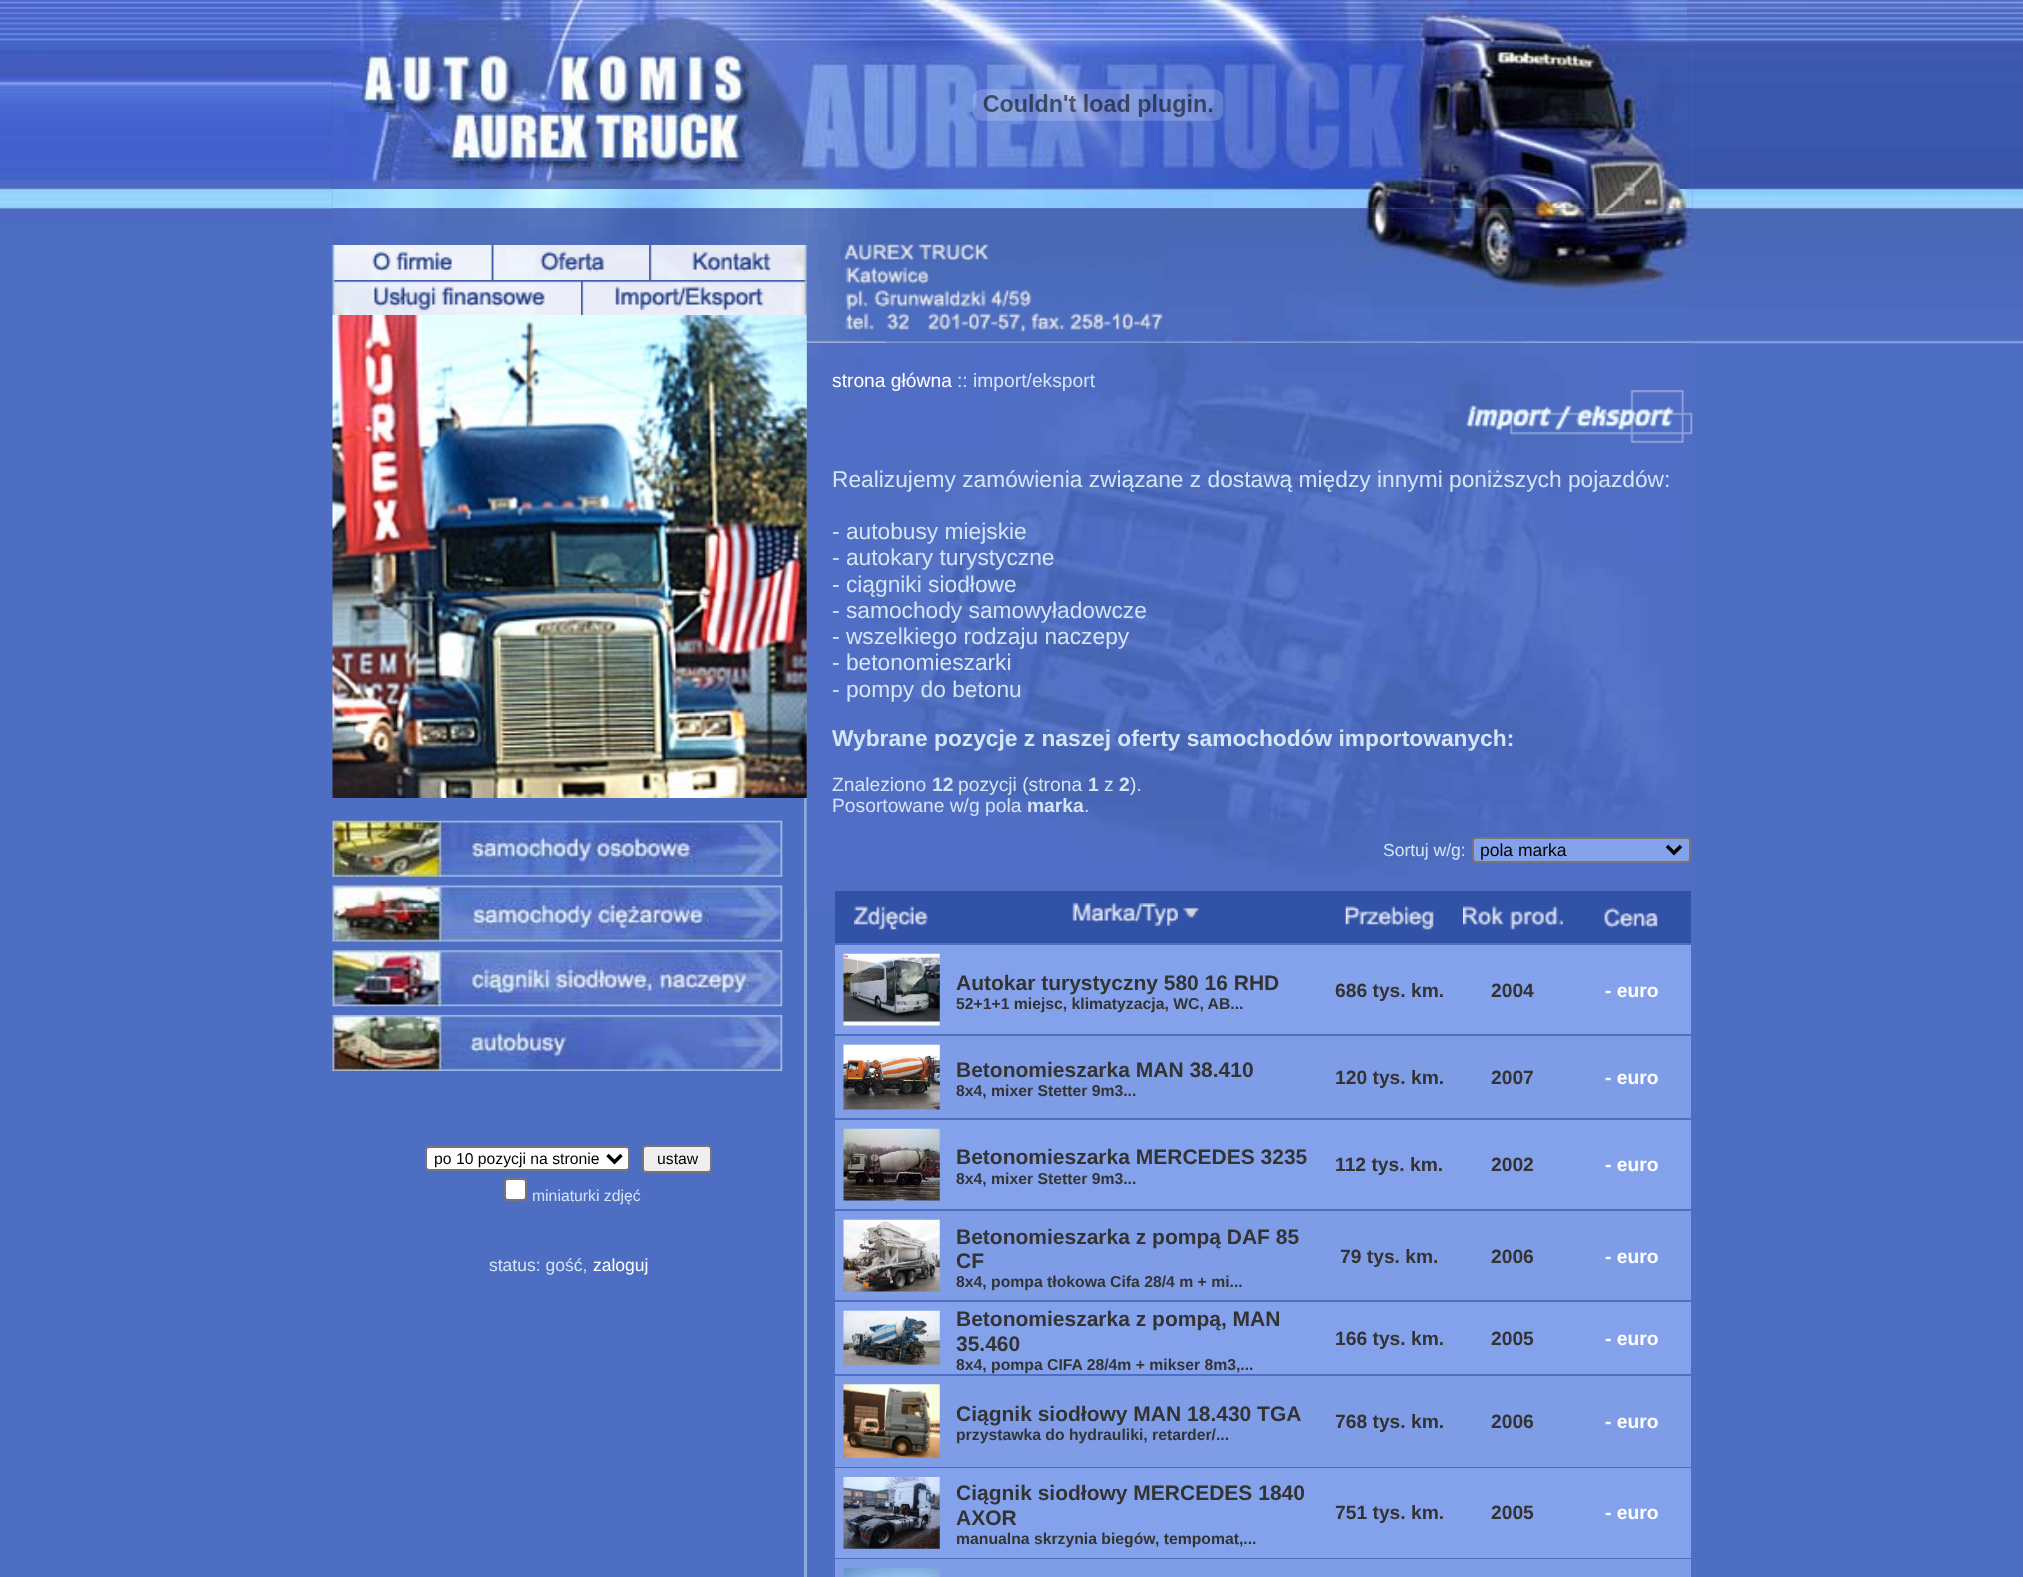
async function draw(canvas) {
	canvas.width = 2023;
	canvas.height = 1577;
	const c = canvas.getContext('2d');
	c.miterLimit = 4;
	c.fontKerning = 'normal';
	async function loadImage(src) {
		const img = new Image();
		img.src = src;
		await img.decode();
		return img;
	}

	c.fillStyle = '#4e6ec3';
	c.fillRect(0, 0, 2023, 1577);
	c.drawImage(await loadImage('img1.png'), 0, 0, 333, 224);
	c.drawImage(await loadImage('img3.png'), 332, 0, 1361, 344);
	c.drawImage(await loadImage('img2.png'), 1692, 0, 331, 344);
	c.drawImage(await loadImage('img4.png'), 332, 0, 417, 112);
	c.drawImage(await loadImage('img5.png'), 749, 0, 700, 209);
	c.drawImage(await loadImage('img6.png'), 973, 89, 251, 32);
	c.drawImage(await loadImage('img7.png'), 1449, 0, 238, 112);
	c.drawImage(await loadImage('img8.png'), 332, 112, 417, 77);
	c.drawImage(await loadImage('img9.png'), 1449, 112, 238, 77);
	c.drawImage(await loadImage('img10.png'), 332, 189, 417, 20);
	c.drawImage(await loadImage('img11.png'), 1449, 189, 238, 20);
	c.fillStyle = '#9dbaddc7';
	c.fillRect(804, 208, 3, 1369);
	c.drawImage(await loadImage('img15.png'), 332, 208, 475, 37);
	c.drawImage(await loadImage('img16.png'), 332, 245, 160, 35);
	c.drawImage(await loadImage('img17.png'), 491, 245, 159, 35);
	c.drawImage(await loadImage('img18.png'), 649, 245, 158, 35);
	c.drawImage(await loadImage('img20.png'), 581, 280, 226, 35);
	c.drawImage(await loadImage('img26.png'), 806, 343, 886, 564);
	c.drawImage(await loadImage('img21.png'), 332, 315, 475, 483);
	c.drawImage(await loadImage('img12.png'), 806, 208, 360, 135);
	c.drawImage(await loadImage('img13.png'), 1165, 208, 193, 135);
	c.drawImage(await loadImage('img14.png'), 1358, 208, 335, 135);
	c.drawImage(await loadImage('img19.png'), 332, 280, 249, 35);
	c.drawImage(await loadImage('img22.png'), 332, 820, 451, 57);
	c.drawImage(await loadImage('img23.png'), 332, 885, 451, 57);
	c.drawImage(await loadImage('img24.png'), 332, 950, 451, 57);
	c.drawImage(await loadImage('img25.png'), 332, 1015, 451, 56);
	c.fillStyle = '#fff';
	c.beginPath();
	c.roundRect(426, 1147, 203, 23, 3);
	c.fill();
	c.strokeStyle = '#767676';
	c.lineWidth = 2;
	c.stroke();
	c.beginPath();
	c.moveTo(607.5, 1155);
	c.lineTo(614.5, 1162);
	c.lineTo(621.5, 1155);
	c.strokeStyle = '#000';
	c.lineWidth = 3.5;
	c.stroke();
	c.font = '15.75px Liberation Sans';
	c.fillStyle = '#000';
	c.fillText('po 10 pozycji na stronie', 434, 1164);
	c.fillStyle = '#efefef';
	c.beginPath();
	c.roundRect(643, 1146, 68, 26, 3);
	c.fill();
	c.strokeStyle = '#767676';
	c.lineWidth = 2;
	c.stroke();
	c.fillStyle = '#000';
	c.fillText('ustaw', 657, 1164);
	c.fillStyle = '#fff';
	c.beginPath();
	c.roundRect(505, 1179, 21, 21, 3);
	c.fill();
	c.stroke();
	c.fillStyle = '#d4e5f6';
	c.fillText('miniaturki zdjęć', 532, 1201);
	c.font = '17.5px Liberation Sans';
	c.fillText('status: gość,', 489, 1271);
	c.fillStyle = '#fff';
	c.fillText('zaloguj', 593, 1271);
	c.font = '19.25px Liberation Sans';
	c.fillText('strona główna', 832, 387);
	c.fillStyle = '#d4e5f6';
	c.fillText(':: import/eksport', 957, 387);
	c.drawImage(await loadImage('img27.png'), 1466, 390, 227, 53);
	c.font = '22.75px Liberation Sans';
	for (const [text, x, y] of [
		['Realizujemy zamówienia związane z dostawą między innymi poniższych pojazdów:', 832, 487],
		['- autobusy miejskie', 832, 539],
		['- autokary turystyczne', 832, 565],
		['- ciągniki siodłowe', 832, 592],
		['- samochody samowyładowcze', 832, 618],
		['- wszelkiego rodzaju naczepy', 832, 644],
		['- betonomieszarki', 832, 670],
		['- pompy do betonu', 832, 697],
	]) {
		c.fillText(text, x, y);
	}
	c.font = 'bold 22.75px Liberation Sans';
	c.fillText('Wybrane pozycje z naszej oferty samochodów importowanych:', 832, 746);
	c.font = '19.25px Liberation Sans';
	c.fillText('Znaleziono', 832, 791);
	c.font = 'bold 19.25px Liberation Sans';
	c.fillText('12', 932, 791);
	c.font = '19.25px Liberation Sans';
	c.fillText('pozycji (strona', 958, 791);
	c.font = 'bold 19.25px Liberation Sans';
	c.fillText('1', 1088, 791);
	c.font = '19.25px Liberation Sans';
	c.fillText('z', 1104, 791);
	c.font = 'bold 19.25px Liberation Sans';
	c.fillText('2', 1119, 791);
	c.font = '19.25px Liberation Sans';
	c.fillText(').', 1130, 791);
	c.fillText('Posortowane w/g pola', 832, 812);
	c.font = 'bold 19.25px Liberation Sans';
	c.fillText('marka', 1027, 812);
	c.font = '19.25px Liberation Sans';
	c.fillText('.', 1084, 812);
	c.font = '17.5px Liberation Sans';
	c.fillText('Sortuj w/g:', 1383, 856);
	c.fillStyle = '#84a2ec';
	c.beginPath();
	c.roundRect(1473, 838, 217, 24, 3);
	c.fill();
	c.stroke();
	c.beginPath();
	c.moveTo(1667, 846);
	c.lineTo(1674, 853);
	c.lineTo(1681, 846);
	c.strokeStyle = '#000';
	c.lineWidth = 3.5;
	c.stroke();
	c.save();
	c.beginPath();
	c.rect(1481, 838, 180, 23);
	c.clip();
	c.fillStyle = '#000';
	c.fillText('pola marka', 1480, 856);
	c.restore();
	c.fillStyle = '#3252a7';
	c.fillRect(835, 891, 856, 52);
	c.drawImage(await loadImage('img28.png'), 854, 906, 74, 24);
	c.drawImage(await loadImage('img29.png'), 1072, 903, 106, 23);
	c.drawImage(await loadImage('img30.png'), 1183, 907, 16, 11);
	c.drawImage(await loadImage('img31.png'), 1345, 906, 89, 24);
	c.drawImage(await loadImage('img32.png'), 1463, 906, 100, 24);
	c.drawImage(await loadImage('img33.png'), 1603, 908, 55, 20);
	c.fillStyle = '#84a2ec';
	c.fillRect(835, 945, 856, 89);
	c.drawImage(await loadImage('img34.png'), 843, 953, 97, 73);
	c.font = 'bold 21px Liberation Sans';
	c.fillStyle = '#333';
	c.fillText('Autokar turystyczny 580 16 RHD', 956, 990);
	c.font = 'bold 15.75px Liberation Sans';
	c.fillText('52+1+1 miejsc, klimatyzacja, WC, AB...', 956, 1009);
	c.font = 'bold 19.25px Liberation Sans';
	c.fillText('686 tys. km.', 1335, 997);
	c.fillText('2004', 1491, 997);
	c.fillStyle = '#fff';
	c.fillText('- euro', 1605, 997);
	c.fillStyle = '#7f9de7';
	c.fillRect(835, 1036, 856, 82);
	c.drawImage(await loadImage('img35.png'), 843, 1044, 97, 66);
	c.font = 'bold 21px Liberation Sans';
	c.fillStyle = '#333';
	c.fillText('Betonomieszarka MAN 38.410', 956, 1077);
	c.font = 'bold 15.75px Liberation Sans';
	c.fillText('8x4, mixer Stetter 9m3...', 956, 1096);
	c.font = 'bold 19.25px Liberation Sans';
	c.fillText('120 tys. km.', 1335, 1084);
	c.fillText('2007', 1491, 1084);
	c.fillStyle = '#fff';
	c.fillText('- euro', 1605, 1084);
	c.fillStyle = '#84a2ec';
	c.fillRect(835, 1120, 856, 89);
	c.drawImage(await loadImage('img36.png'), 843, 1128, 97, 73);
	c.font = 'bold 21px Liberation Sans';
	c.fillStyle = '#333';
	c.fillText('Betonomieszarka MERCEDES 3235', 956, 1164);
	c.font = 'bold 15.75px Liberation Sans';
	c.fillText('8x4, mixer Stetter 9m3...', 956, 1184);
	c.font = 'bold 19.25px Liberation Sans';
	c.fillText('112 tys. km.', 1335, 1171);
	c.fillText('2002', 1491, 1171);
	c.fillStyle = '#fff';
	c.fillText('- euro', 1605, 1171);
	c.fillStyle = '#7f9de7';
	c.fillRect(835, 1211, 856, 89);
	c.drawImage(await loadImage('img37.png'), 843, 1219, 97, 73);
	c.font = 'bold 21px Liberation Sans';
	c.fillStyle = '#333';
	c.fillText('Betonomieszarka z pompą DAF 85', 956, 1244);
	c.fillText('CF', 956, 1268);
	c.font = 'bold 15.75px Liberation Sans';
	c.fillText('8x4, pompa tłokowa Cifa 28/4 m + mi...', 956, 1287);
	c.font = 'bold 19.25px Liberation Sans';
	c.fillText('79 tys. km.', 1340, 1263);
	c.fillText('2006', 1491, 1263);
	c.fillStyle = '#fff';
	c.fillText('- euro', 1605, 1263);
	c.fillStyle = '#84a2ec';
	c.fillRect(835, 1302, 856, 72);
	c.drawImage(await loadImage('img38.png'), 843, 1310, 97, 55);
	c.font = 'bold 21px Liberation Sans';
	c.fillStyle = '#333';
	c.fillText('Betonomieszarka z pompą, MAN', 956, 1326);
	c.fillText('35.460', 956, 1351);
	c.font = 'bold 15.75px Liberation Sans';
	c.fillText('8x4, pompa CIFA 28/4m + mikser 8m3,...', 956, 1370);
	c.font = 'bold 19.25px Liberation Sans';
	c.fillText('166 tys. km.', 1335, 1345);
	c.fillText('2005', 1491, 1345);
	c.fillStyle = '#fff';
	c.fillText('- euro', 1605, 1345);
	c.fillStyle = '#7f9de7';
	c.fillRect(835, 1376, 856, 91);
	c.drawImage(await loadImage('img39.png'), 843, 1384, 97, 74);
	c.font = 'bold 21px Liberation Sans';
	c.fillStyle = '#333';
	c.fillText('Ciągnik siodłowy MAN 18.430 TGA', 956, 1421);
	c.font = 'bold 15.75px Liberation Sans';
	c.fillText('przystawka do hydrauliki, retarder/...', 956, 1440);
	c.font = 'bold 19.25px Liberation Sans';
	c.fillText('768 tys. km.', 1335, 1428);
	c.fillText('2006', 1491, 1428);
	c.fillStyle = '#fff';
	c.fillText('- euro', 1605, 1428);
	c.fillStyle = '#84a2ec';
	c.fillRect(835, 1468, 856, 90);
	c.drawImage(await loadImage('img40.png'), 843, 1477, 97, 72);
	c.font = 'bold 21px Liberation Sans';
	c.fillStyle = '#333';
	c.fillText('Ciągnik siodłowy MERCEDES 1840', 956, 1500);
	c.fillText('AXOR', 956, 1525);
	c.font = 'bold 15.75px Liberation Sans';
	c.fillText('manualna skrzynia biegów, tempomat,...', 956, 1544);
	c.font = 'bold 19.25px Liberation Sans';
	c.fillText('751 tys. km.', 1335, 1519);
	c.fillText('2005', 1491, 1519);
	c.fillStyle = '#fff';
	c.fillText('- euro', 1605, 1519);
	c.fillStyle = '#7f9de7';
	c.fillRect(835, 1559, 856, 18);
	c.drawImage(await loadImage('img41.png'), 843, 1568, 97, 9);
}

draw(document.querySelector('canvas'));
